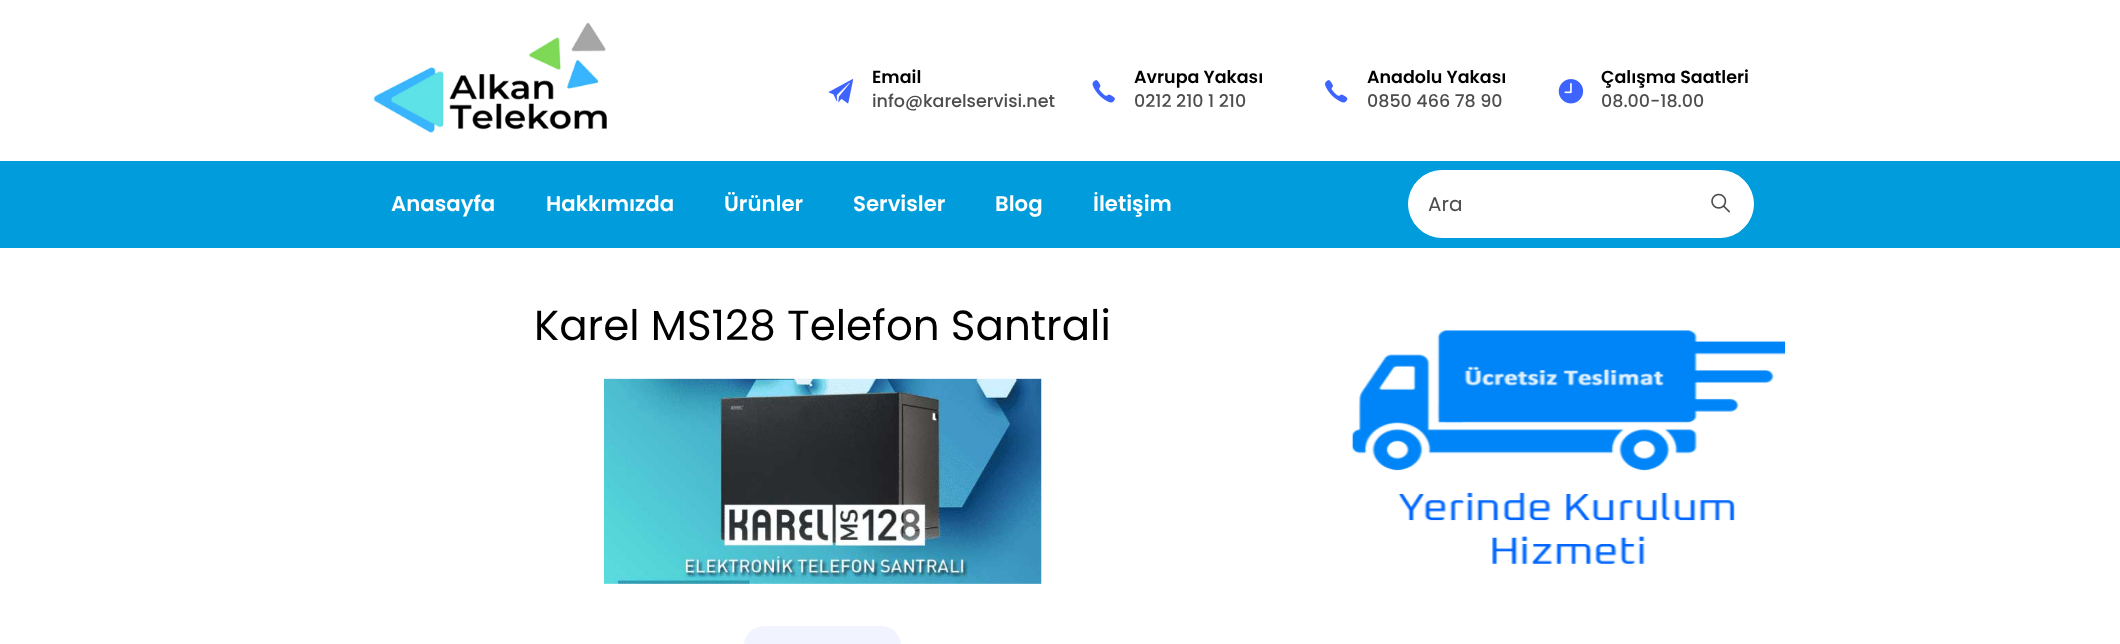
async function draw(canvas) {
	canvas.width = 2120;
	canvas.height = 644;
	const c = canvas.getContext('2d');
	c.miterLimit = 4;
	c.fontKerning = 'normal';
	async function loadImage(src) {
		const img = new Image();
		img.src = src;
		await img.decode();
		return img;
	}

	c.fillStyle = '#fff';
	c.fillRect(0, 0, 2120, 644);
	c.drawImage(await loadImage('img1.png'), 373, 22, 234, 111);
	c.drawImage(await loadImage('img2.png'), 828, 79, 26, 25);
	c.font = '600 17.5px Poppins';
	c.fillStyle = '#000';
	c.fillText('Email', 872, 83);
	c.font = '500 17.5px Poppins';
	c.fillStyle = '#4d4d4d';
	c.fillText('info@karelservisi.net', 872, 107);
	c.drawImage(await loadImage('img3.png'), 1092, 80, 23, 23);
	c.font = '600 17.5px Poppins';
	c.fillStyle = '#000';
	c.fillText('Avrupa Yakası', 1134, 83);
	c.font = '500 17.5px Poppins';
	c.fillStyle = '#4d4d4d';
	c.fillText('0212 210 1 210', 1134, 107);
	c.drawImage(await loadImage('img4.png'), 1325, 80, 23, 23);
	c.font = '600 17.5px Poppins';
	c.fillStyle = '#000';
	c.fillText('Anadolu Yakası', 1367, 83);
	c.font = '500 17.5px Poppins';
	c.fillStyle = '#4d4d4d';
	c.fillText('0850 466 78 90', 1367, 107);
	c.drawImage(await loadImage('img5.png'), 1558, 79, 26, 25);
	c.font = '600 17.5px Poppins';
	c.fillStyle = '#000';
	c.fillText('Çalışma Saatleri', 1601, 83);
	c.font = '500 17.5px Poppins';
	c.fillStyle = '#4d4d4d';
	c.fillText('08.00-18.00', 1601, 107);
	c.fillStyle = '#019cdc';
	c.fillRect(0, 161, 2120, 87);
	c.font = '600 21.25px Poppins';
	c.fillStyle = '#fff';
	for (const [text, x, y] of [
		['Anasayfa', 391, 211],
		['Hakkımızda', 546, 211],
		['Ürünler', 724, 211],
		['Servisler', 853, 211],
		['Blog', 995, 211],
		['İletişim', 1093, 211],
	]) {
		c.fillText(text, x, y);
	}
	c.beginPath();
	c.roundRect(1408.5, 170.5, 345, 67, 33.5);
	c.fill();
	c.strokeStyle = '#fff';
	c.stroke();
	c.font = '20px Poppins';
	c.fillStyle = '#4d4d4d';
	c.fillText('Ara', 1428, 211);
	c.drawImage(await loadImage('img6.png'), 1711, 193, 19, 20);
	c.font = '42px Poppins';
	c.fillStyle = '#000';
	c.fillText('Karel MS128 Telefon Santrali', 534, 340);
	c.drawImage(await loadImage('img7.png'), 604, 378, 438, 206);
	c.fillStyle = '#f1f3ff';
	c.beginPath();
	c.roundRect(744, 626, 157, 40, 22);
	c.fill();
	c.drawImage(await loadImage('img8.png'), 1351, 330, 434, 234);
}

draw(document.querySelector('canvas'));
